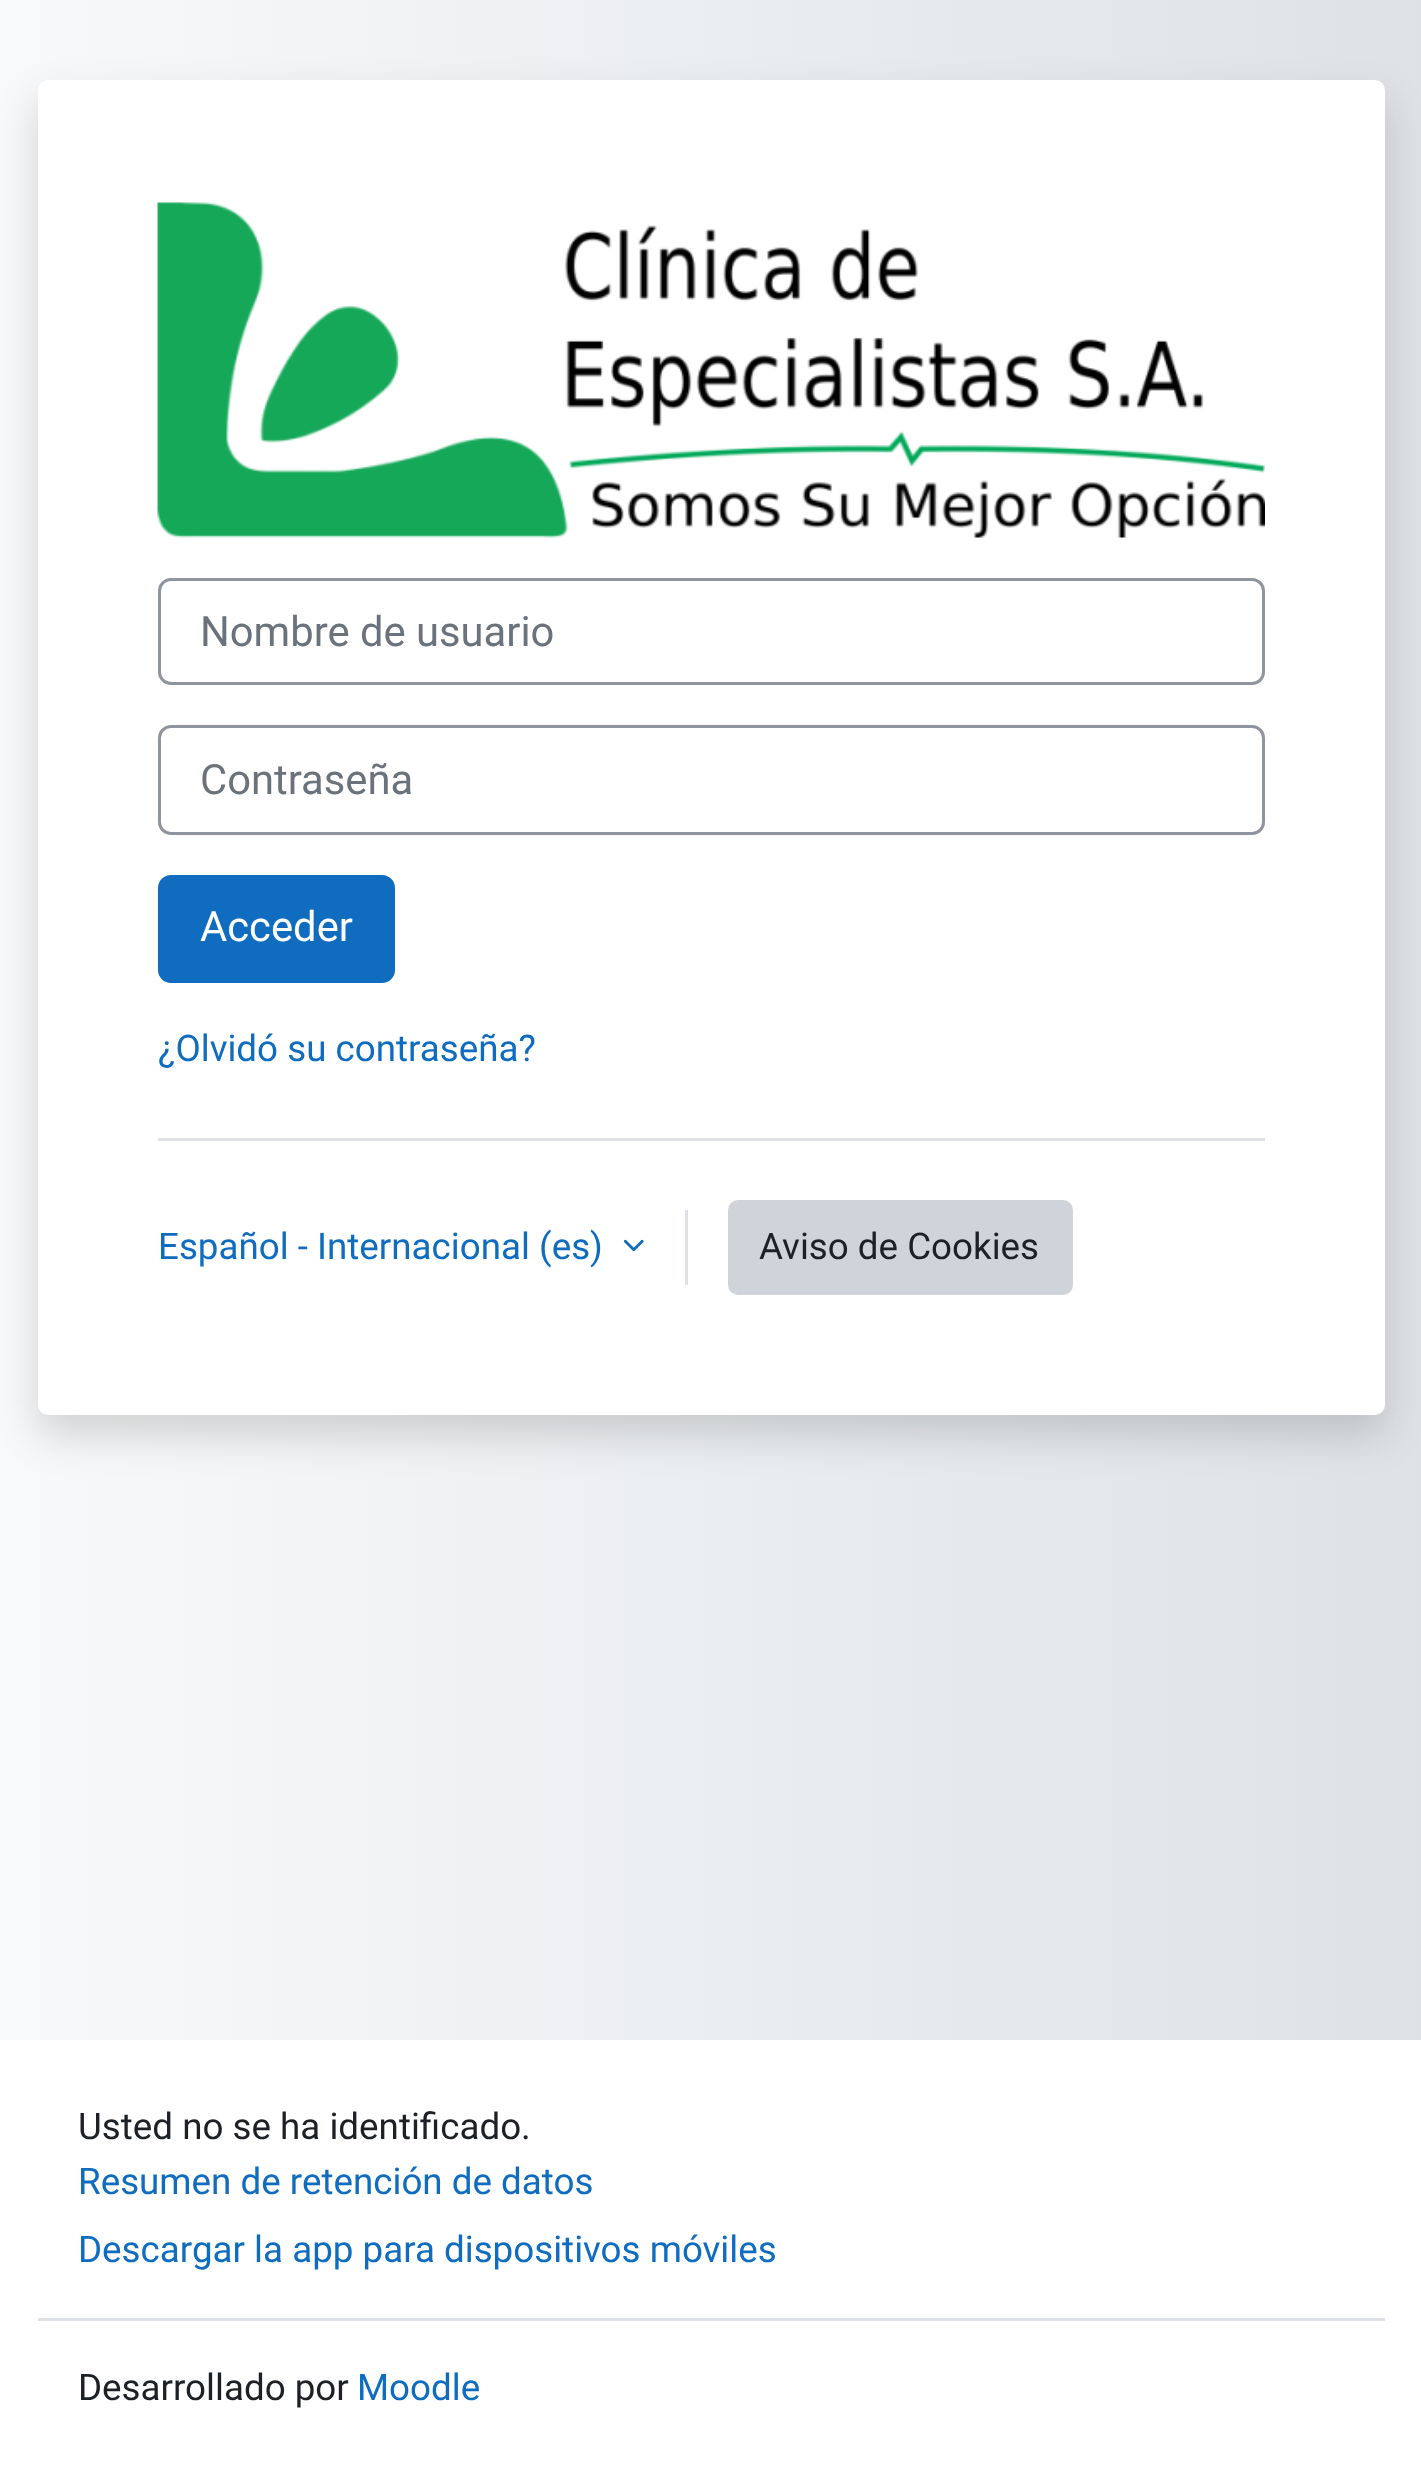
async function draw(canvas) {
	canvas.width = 1421;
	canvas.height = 2473;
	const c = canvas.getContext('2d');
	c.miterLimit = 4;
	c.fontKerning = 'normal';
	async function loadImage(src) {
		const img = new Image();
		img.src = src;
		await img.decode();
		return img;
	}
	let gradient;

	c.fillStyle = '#fff';
	c.fillRect(0, 0, 1421, 2473);
	gradient = c.createLinearGradient(0, 1020, 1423, 1020);
	gradient.addColorStop(0, '#f8f9fa');
	gradient.addColorStop(1, '#dee2e6');
	c.fillStyle = gradient;
	c.fillRect(0, 0, 1421, 2040);
	c.fillStyle = '#00000026';
	c.filter = 'blur(20px)';
	c.beginPath();
	c.roundRect(38, 100, 1347, 1335, 10);
	c.fill();
	c.filter = 'none';
	c.fillStyle = '#fff';
	c.beginPath();
	c.roundRect(38, 80, 1347, 1335, 10);
	c.fill();
	c.drawImage(await loadImage('img1.png'), 157, 202, 1108, 336);
	c.beginPath();
	c.roundRect(159.5, 579.5, 1104, 104, 11.5);
	c.strokeStyle = '#8f959e';
	c.lineWidth = 3;
	c.stroke();
	c.font = '41.75px Roboto';
	c.fillStyle = '#6a737b';
	c.fillText('Nombre de usuario', 200, 646);
	c.beginPath();
	c.roundRect(159.5, 726.5, 1104, 107, 11.5);
	c.stroke();
	c.fillText('Contraseña', 200, 794);
	c.fillStyle = '#0f6cbf';
	c.beginPath();
	c.roundRect(159.5, 876.5, 234, 105, 11.5);
	c.fill();
	c.strokeStyle = '#0f6cbf';
	c.stroke();
	c.fillStyle = '#fff';
	c.fillText('Acceder', 200, 941);
	c.font = '36.75px Roboto';
	c.fillStyle = '#0f6cbf';
	c.fillText('¿Olvidó su contraseña?', 158, 1061);
	c.fillStyle = '#dee2e6';
	c.fillRect(158, 1138, 1107, 3);
	c.fillStyle = '#0f6cbf';
	c.fillText('Español - Internacional (es)', 158, 1259);
	c.drawImage(await loadImage('img2.png'), 623, 1239, 21, 13);
	c.fillStyle = '#dee2e6';
	c.fillRect(685, 1210, 3, 75);
	c.fillStyle = '#ced4da';
	c.beginPath();
	c.roundRect(729.5, 1201.5, 342, 92, 8.5);
	c.fill();
	c.strokeStyle = '#ced4da';
	c.stroke();
	c.fillStyle = '#1d2125';
	c.fillText('Aviso de Cookies', 759, 1259);
	c.fillStyle = '#dee2e6';
	c.fillRect(38, 2318, 1347, 3);
	c.fillStyle = '#1d2125';
	c.fillText('Usted no se ha identificado.', 78, 2139);
	c.fillStyle = '#0f6cbf';
	c.fillText('Resumen de retención de datos', 78, 2194);
	c.fillText('Descargar la app para dispositivos móviles', 78, 2262);
	c.fillStyle = '#1d2125';
	c.fillText('Desarrollado por', 78, 2400);
	c.fillStyle = '#0f6cbf';
	c.fillText('Moodle', 357, 2400);
}

draw(document.querySelector('canvas'));
